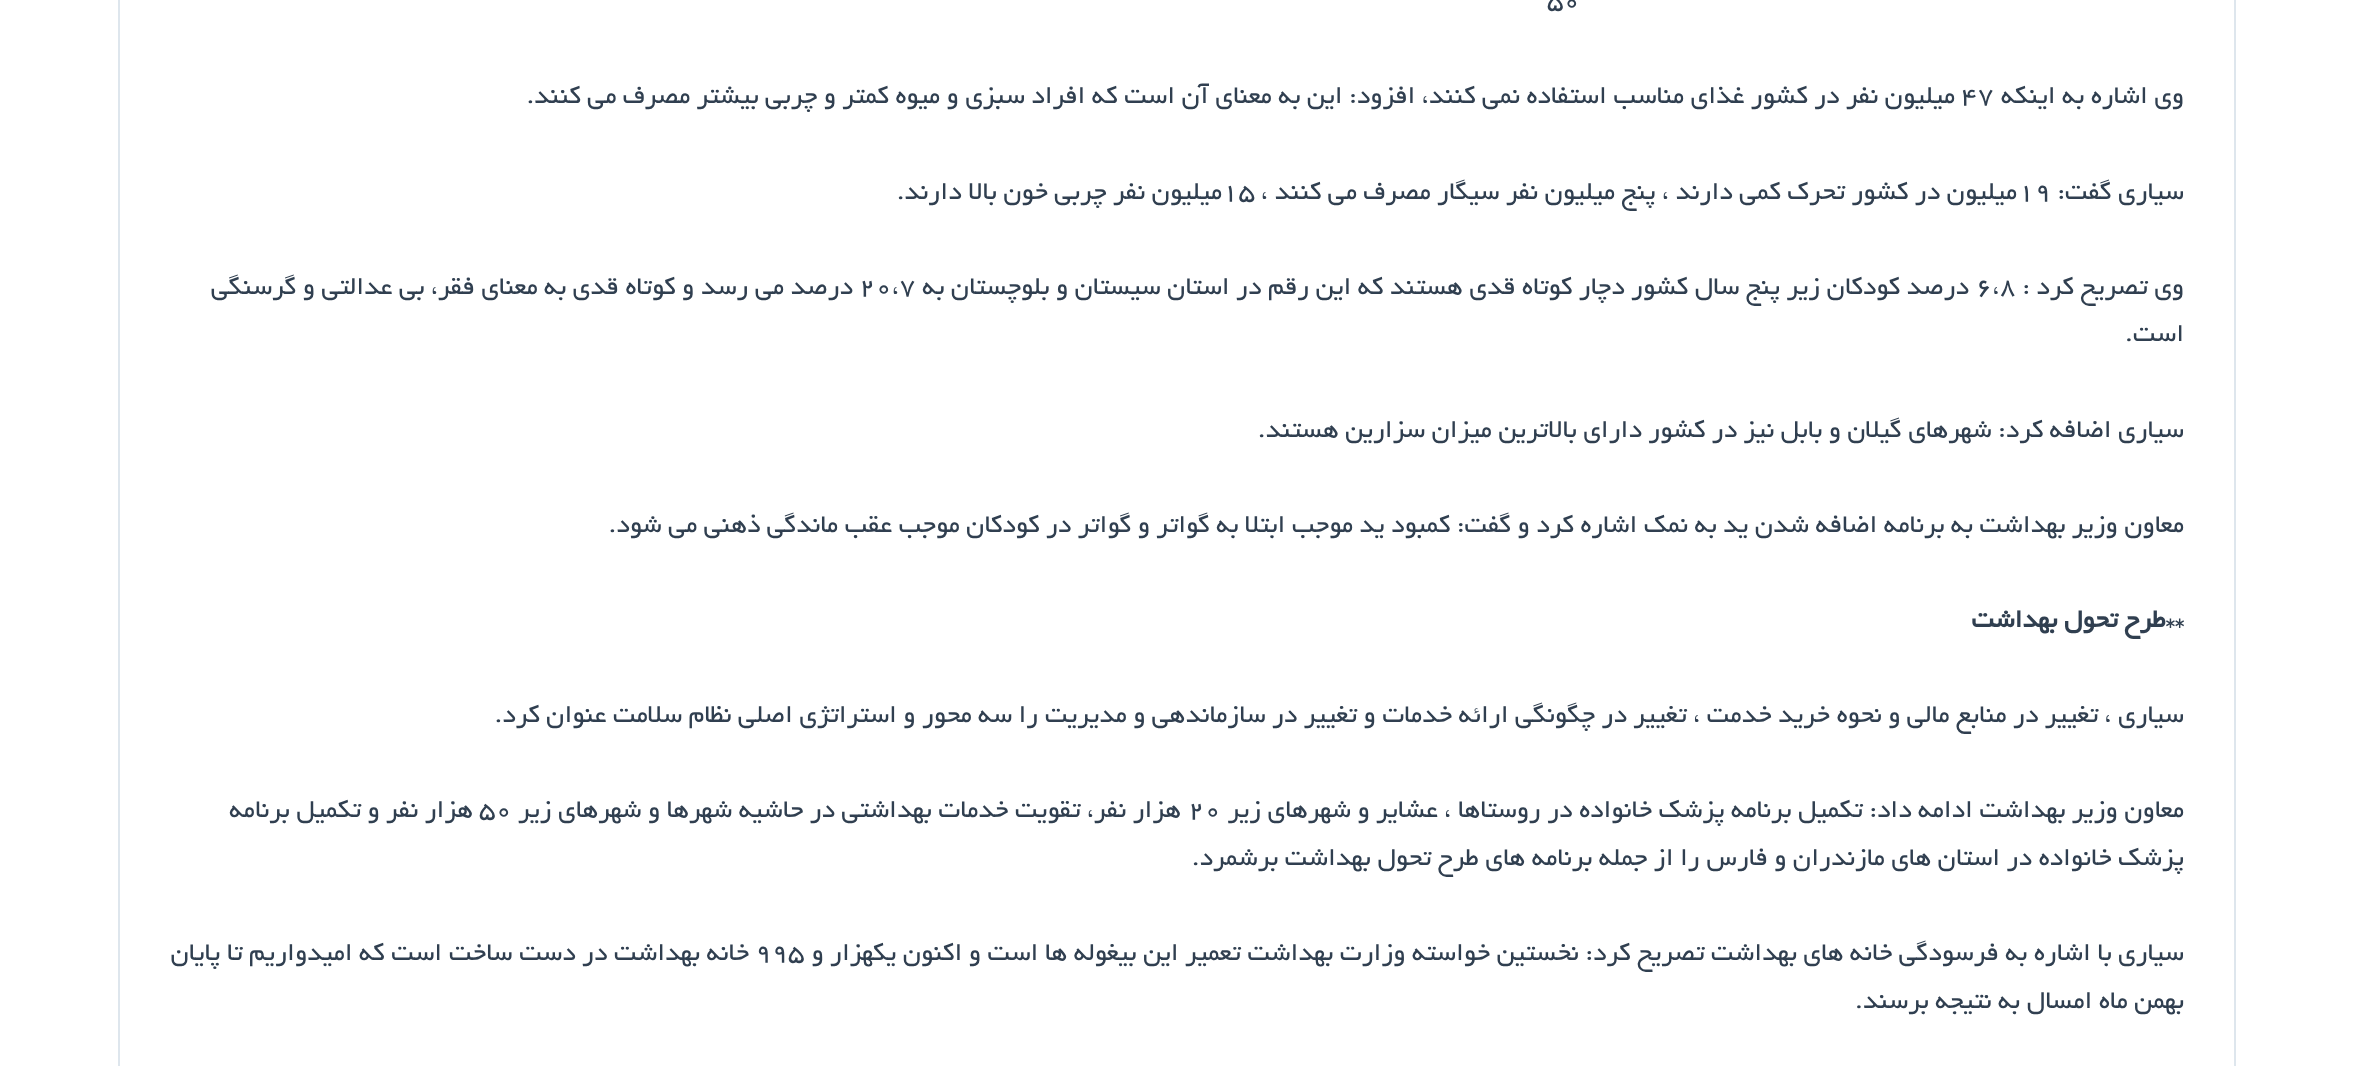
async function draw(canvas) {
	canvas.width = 2354;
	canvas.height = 1066;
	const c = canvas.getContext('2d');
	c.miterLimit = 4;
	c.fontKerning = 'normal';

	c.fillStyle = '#fff';
	c.fillRect(0, 0, 2354, 1066);
	c.fillStyle = '#dee6ed';
	c.fillRect(2234, 0, 2, 1066);
	c.fillRect(118, 0, 2, 1066);
	c.font = '28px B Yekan';
	c.fillStyle = '#303f50';
	c.fillText('50', 1547, 8);
	c.direction = 'rtl';
	c.fillText('وی اشاره به اینکه', 2184, 103);
	c.direction = 'ltr';
	c.fillText('47', 1961, 103);
	c.direction = 'rtl';
	c.fillText('میلیون نفر در کشور غذای مناسب استفاده نمی کنند، افزود: این به معنای آن است که افراد سبزی و میوه کمتر و چربی بیشتر مصرف می کنند.', 1955, 103);
	c.fillText('سیاری گفت:', 2184, 199);
	c.direction = 'ltr';
	c.fillText('19', 2018, 199);
	c.direction = 'rtl';
	c.fillText('میلیون در کشور تحرک کمی دارند ، پنج میلیون نفر سیگار مصرف می کنند ،', 2017, 199);
	c.direction = 'ltr';
	c.fillText('15', 1222, 199);
	c.direction = 'rtl';
	c.fillText('میلیون نفر چربی خون بالا دارند.', 1222, 199);
	c.fillText('وی تصریح کرد :', 2184, 294);
	c.direction = 'ltr';
	c.fillText('6،8', 1976, 294);
	c.direction = 'rtl';
	c.fillText('درصد کودکان زیر پنج سال کشور دچار کوتاه قدی هستند که این رقم در استان سیستان و بلوچستان به', 1969, 294);
	c.direction = 'ltr';
	c.fillText('20،7', 859, 294);
	c.direction = 'rtl';
	for (const [text, x, y] of [
		['درصد می رسد و کوتاه قدی به معنای فقر، بی عدالتی و گرسنگی', 853, 294],
		['است.', 2184, 341],
		['سیاری اضافه کرد: شهرهای گیلان و بابل نیز در کشور دارای بالاترین میزان سزارین هستند.', 2184, 437],
		['معاون وزیر بهداشت به برنامه اضافه شدن ید به نمک اشاره کرد و گفت: کمبود ید موجب ابتلا به گواتر و گواتر در کودکان موجب عقب ماندگی ذهنی می شود.', 2184, 532],
	]) {
		c.fillText(text, x, y);
	}
	c.font = 'bold 28px B Yekan';
	c.fillText('**طرح تحول بهداشت', 2184, 627);
	c.font = '28px B Yekan';
	c.fillText('سیاری ، تغییر در منابع مالی و نحوه خرید خدمت ، تغییر در چگونگی ارائه خدمات و تغییر در سازماندهی و مدیریت را سه محور و استراتژی اصلی نظام سلامت عنوان کرد.', 2184, 722);
	c.fillText('معاون وزیر بهداشت ادامه داد: تکمیل برنامه پزشک خانواده در روستاها ، عشایر و شهرهای زیر', 2184, 817);
	c.direction = 'ltr';
	c.fillText('20', 1188, 817);
	c.direction = 'rtl';
	c.fillText('هزار نفر، تقویت خدمات بهداشتی در حاشیه شهرها و شهرهای زیر', 1181, 817);
	c.direction = 'ltr';
	c.fillText('50', 479, 817);
	c.direction = 'rtl';
	for (const [text, x, y] of [
		['هزار نفر و تکمیل برنامه', 473, 817],
		['پزشک خانواده در استان های مازندران و فارس را از جمله برنامه های طرح تحول بهداشت برشمرد.', 2184, 865],
		['سیاری با اشاره به فرسودگی خانه های بهداشت تصریح کرد: نخستین خواسته وزارت بهداشت تعمیر این بیغوله ها است و اکنون یکهزار و', 2184, 960],
	]) {
		c.fillText(text, x, y);
	}
	c.direction = 'ltr';
	c.fillText('995', 755, 960);
	c.direction = 'rtl';
	c.fillText('خانه بهداشت در دست ساخت است که امیدواریم تا پایان', 749, 960);
	c.fillText('بهمن ماه امسال به نتیجه برسند.', 2184, 1008);
}

draw(document.querySelector('canvas'));
